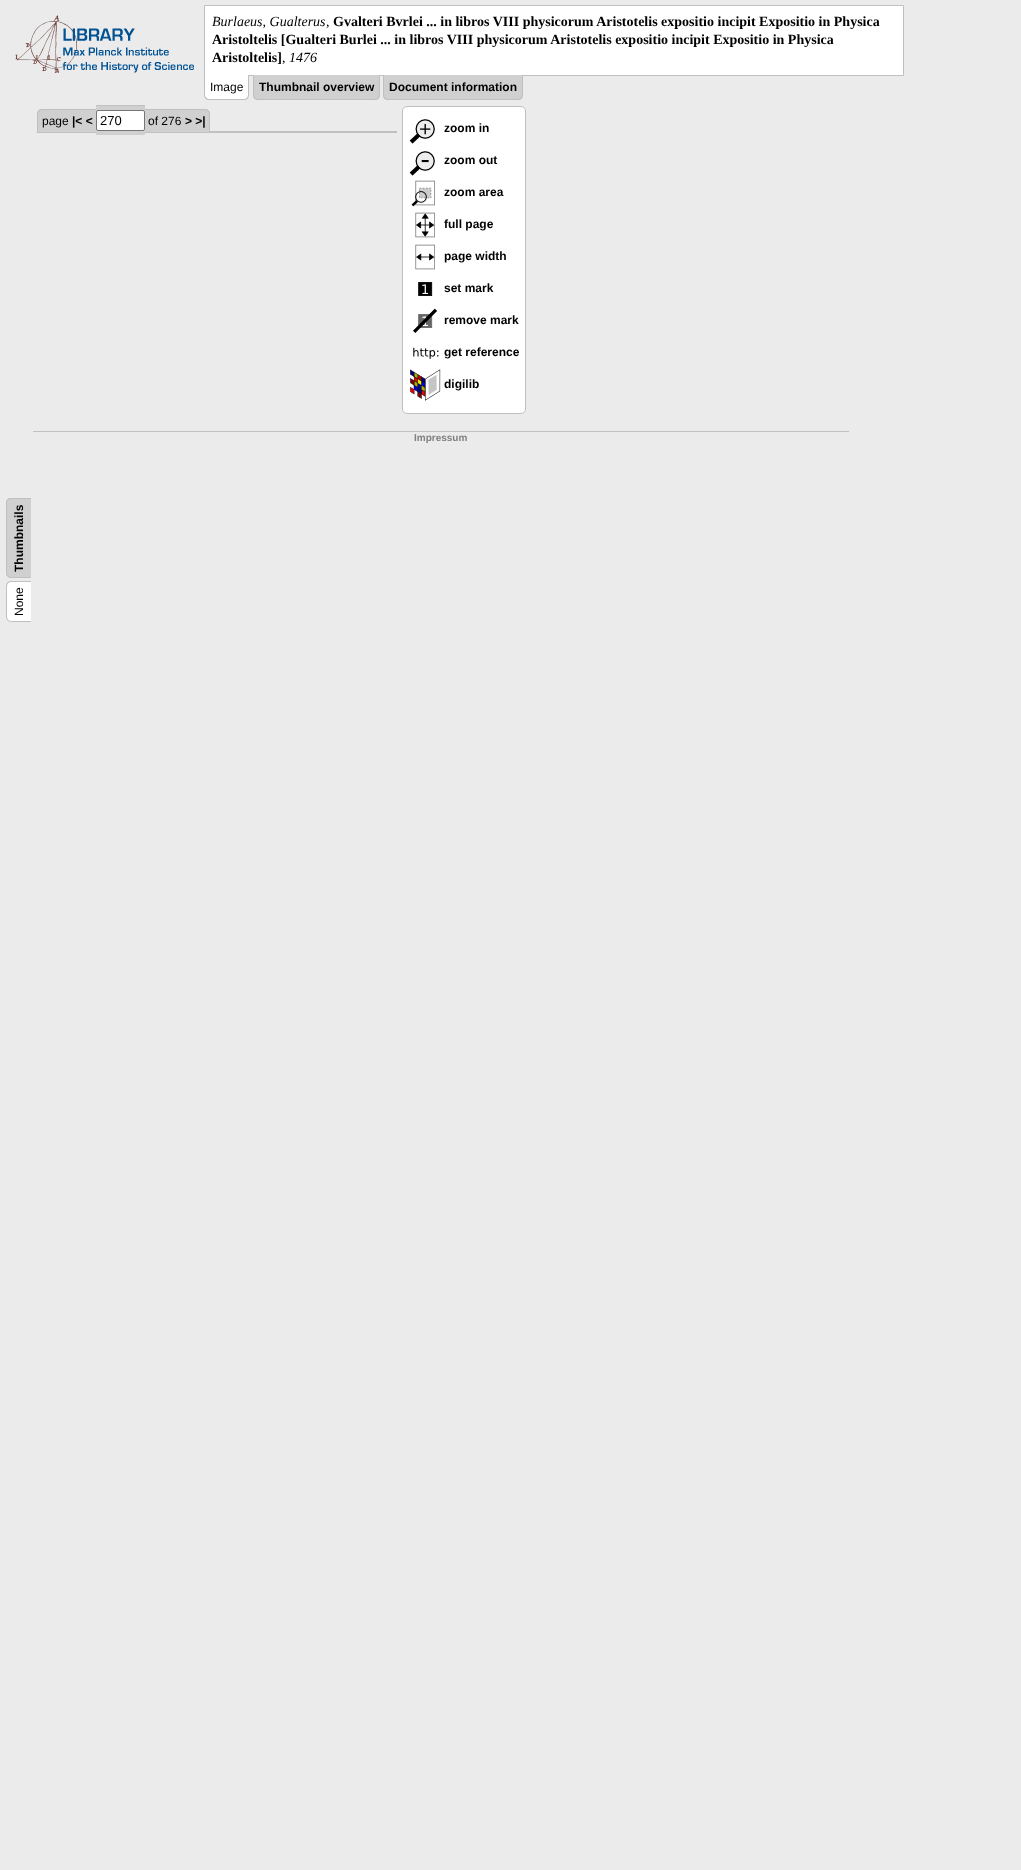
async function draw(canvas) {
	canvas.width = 1021;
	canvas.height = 1870;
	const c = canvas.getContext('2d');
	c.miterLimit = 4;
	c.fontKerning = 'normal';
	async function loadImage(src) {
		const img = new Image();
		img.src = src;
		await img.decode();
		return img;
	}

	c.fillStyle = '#ebebeb';
	c.fillRect(0, 0, 1021, 1870);
	c.drawImage(await loadImage('img1.png'), 15, 15, 179, 58);
	c.fillStyle = '#fff';
	c.beginPath();
	c.rect(204.5, 5.5, 699, 70);
	c.fill();
	c.strokeStyle = '#c0c0c0';
	c.stroke();
	c.font = 'italic 14px Liberation Serif';
	c.fillStyle = '#000';
	c.fillText('Burlaeus, Gualterus', 212, 26);
	c.font = '14px Liberation Serif';
	c.fillText(',', 326, 26);
	c.font = 'bold 14px Liberation Serif';
	for (const [text, x, y] of [
		['Gvalteri Bvrlei ... in libros VIII physicorum Aristotelis expositio incipit Expositio in Physica', 333, 26],
		['Aristoltelis [Gualteri Burlei ... in libros VIII physicorum Aristotelis expositio incipit Expositio in Physica', 212, 44],
		['Aristoltelis]', 212, 62],
	]) {
		c.fillText(text, x, y);
	}
	c.font = '14px Liberation Serif';
	c.fillText(',', 282, 62);
	c.font = 'italic 14px Liberation Serif';
	c.fillText('1476', 289, 62);
	c.fillStyle = '#fff';
	c.beginPath();
	c.roundRect(204, 75, 45, 25, [0, 0, 5, 5]);
	c.fill();
	c.fillStyle = '#c0c0c0';
	c.beginPath();
	c.moveTo(204, 75);
	c.lineTo(249, 75);
	c.lineTo(249, 95);
	c.bezierCurveTo(249, 98, 247, 100, 244, 100);
	c.lineTo(209, 100);
	c.bezierCurveTo(206, 100, 204, 98, 204, 95);
	c.closePath();
	c.moveTo(205, 75);
	c.lineTo(248, 75);
	c.lineTo(248, 95);
	c.bezierCurveTo(248, 97, 246, 99, 244, 99);
	c.lineTo(209, 99);
	c.bezierCurveTo(207, 99, 205, 97, 205, 95);
	c.closePath();
	c.fill('evenodd');
	c.font = '12px Liberation Sans';
	c.fillStyle = '#000';
	c.fillText('Image', 210, 91);
	c.fillStyle = '#d0d0d0';
	c.beginPath();
	c.roundRect(253, 75, 127, 25, [0, 0, 5, 5]);
	c.fill();
	c.fillStyle = '#c0c0c0';
	c.beginPath();
	c.moveTo(253, 75);
	c.lineTo(380, 75);
	c.lineTo(380, 95);
	c.bezierCurveTo(380, 98, 378, 100, 375, 100);
	c.lineTo(258, 100);
	c.bezierCurveTo(255, 100, 253, 98, 253, 95);
	c.closePath();
	c.moveTo(254, 75);
	c.lineTo(379, 75);
	c.lineTo(379, 95);
	c.bezierCurveTo(379, 97, 377, 99, 375, 99);
	c.lineTo(258, 99);
	c.bezierCurveTo(256, 99, 254, 97, 254, 95);
	c.closePath();
	c.fill('evenodd');
	c.font = 'bold 12px Liberation Sans';
	c.fillStyle = '#000';
	c.fillText('Thumbnail overview', 259, 91);
	c.fillStyle = '#d0d0d0';
	c.beginPath();
	c.roundRect(383, 75, 140, 25, [0, 0, 5, 5]);
	c.fill();
	c.fillStyle = '#c0c0c0';
	c.beginPath();
	c.moveTo(383, 75);
	c.lineTo(523, 75);
	c.lineTo(523, 95);
	c.bezierCurveTo(523, 98, 521, 100, 518, 100);
	c.lineTo(388, 100);
	c.bezierCurveTo(385, 100, 383, 98, 383, 95);
	c.closePath();
	c.moveTo(384, 75);
	c.lineTo(522, 75);
	c.lineTo(522, 95);
	c.bezierCurveTo(522, 97, 520, 99, 518, 99);
	c.lineTo(388, 99);
	c.bezierCurveTo(386, 99, 384, 97, 384, 95);
	c.closePath();
	c.fill('evenodd');
	c.fillStyle = '#000';
	c.fillText('Document information', 389, 91);
	c.fillStyle = '#c0c0c0';
	c.fillRect(37, 131, 360, 2);
	c.fillStyle = '#d0d0d0';
	c.beginPath();
	c.roundRect(37, 109, 35, 23, [5, 0, 0, 0]);
	c.fill();
	c.fillStyle = '#c0c0c0';
	c.beginPath();
	c.moveTo(42, 109);
	c.lineTo(72, 109);
	c.lineTo(72, 132);
	c.lineTo(37, 132);
	c.lineTo(37, 114);
	c.bezierCurveTo(37, 111, 39, 109, 42, 109);
	c.closePath();
	c.moveTo(42, 110);
	c.lineTo(72, 110);
	c.lineTo(72, 132);
	c.lineTo(38, 132);
	c.lineTo(38, 114);
	c.bezierCurveTo(38, 112, 40, 110, 42, 110);
	c.closePath();
	c.fill('evenodd');
	for (const [x, y, w, h, color] of [
		[72, 110, 10, 22, '#d0d0d0'],
		[72, 109, 10, 1, '#c0c0c0'],
		[82, 109, 14, 23, '#d0d0d0'],
		[82, 109, 14, 1, '#c0c0c0'],
		[96, 106, 49, 29, '#d0d0d0'],
		[96, 105, 49, 1, '#c0c0c0'],
		[145, 109, 3, 23, '#d0d0d0'],
		[145, 109, 40, 1, '#c0c0c0'],
		[148, 110, 37, 22, '#d0d0d0'],
		[185, 109, 10, 23, '#d0d0d0'],
		[185, 109, 10, 1, '#c0c0c0'],
	]) {
		c.fillStyle = color;
		c.fillRect(x, y, w, h);
	}
	c.fillStyle = '#d0d0d0';
	c.beginPath();
	c.roundRect(195, 109, 15, 23, [0, 5, 0, 0]);
	c.fill();
	c.fillStyle = '#c0c0c0';
	c.beginPath();
	c.moveTo(195, 109);
	c.lineTo(205, 109);
	c.bezierCurveTo(208, 109, 210, 111, 210, 114);
	c.lineTo(210, 132);
	c.lineTo(195, 132);
	c.closePath();
	c.moveTo(195, 110);
	c.lineTo(205, 110);
	c.bezierCurveTo(207, 110, 209, 112, 209, 114);
	c.lineTo(209, 132);
	c.lineTo(195, 132);
	c.closePath();
	c.fill('evenodd');
	c.font = '12px Liberation Sans';
	c.fillStyle = '#000';
	c.fillText('page', 42, 125);
	c.font = 'bold 12px Liberation Sans';
	c.fillText('|< <', 72, 125);
	c.fillStyle = '#fff';
	c.beginPath();
	c.roundRect(96.5, 110.5, 48, 20, 1.5);
	c.fill();
	c.strokeStyle = '#767676';
	c.stroke();
	c.font = '13px Liberation Sans';
	c.fillStyle = '#000';
	c.fillText('270', 100, 125);
	c.font = '12px Liberation Sans';
	c.fillText('of 276', 148, 125);
	c.font = 'bold 12px Liberation Sans';
	c.fillText('> >|', 185, 125);
	c.fillStyle = '#fff';
	c.beginPath();
	c.roundRect(402.5, 106.5, 123, 307, 4.5);
	c.fill();
	c.strokeStyle = '#c0c0c0';
	c.stroke();
	c.drawImage(await loadImage('img2.png'), 409, 119, 26, 25);
	c.fillStyle = '#000';
	c.fillText('zoom in', 444, 132);
	c.drawImage(await loadImage('img3.png'), 409, 151, 26, 25);
	c.fillText('zoom out', 444, 164);
	c.drawImage(await loadImage('img4.png'), 411, 180, 24, 27);
	c.fillText('zoom area', 444, 196);
	c.drawImage(await loadImage('img5.png'), 415, 212, 20, 26);
	c.fillText('full page', 444, 228);
	c.drawImage(await loadImage('img6.png'), 415, 244, 20, 26);
	c.fillText('page width', 444, 260);
	c.drawImage(await loadImage('img7.png'), 418, 282, 15, 14);
	c.fillText('set mark', 444, 292);
	c.drawImage(await loadImage('img8.png'), 413, 308, 24, 25);
	c.fillText('remove mark', 444, 324);
	c.drawImage(await loadImage('img9.png'), 413, 347, 26, 12);
	c.fillText('get reference', 444, 356);
	c.drawImage(await loadImage('img10.png'), 410, 369, 31, 32);
	c.fillText('digilib', 444, 388);
	c.fillStyle = '#d0d0d0';
	c.beginPath();
	c.moveTo(6, 573);
	c.lineTo(6, 503);
	c.bezierCurveTo(6, 500, 8, 498, 11, 498);
	c.lineTo(31, 498);
	c.lineTo(31, 578);
	c.lineTo(11, 578);
	c.bezierCurveTo(8, 578, 6, 575, 6, 573);
	c.closePath();
	c.fill();
	c.fillStyle = '#c0c0c0';
	c.beginPath();
	c.moveTo(6, 573);
	c.lineTo(6, 503);
	c.bezierCurveTo(6, 500, 8, 498, 11, 498);
	c.lineTo(31, 498);
	c.lineTo(31, 578);
	c.lineTo(11, 578);
	c.bezierCurveTo(8, 578, 6, 575, 6, 573);
	c.closePath();
	c.moveTo(7, 573);
	c.lineTo(7, 503);
	c.bezierCurveTo(7, 501, 9, 499, 11, 499);
	c.lineTo(31, 499);
	c.lineTo(31, 577);
	c.lineTo(11, 577);
	c.bezierCurveTo(9, 577, 7, 575, 7, 573);
	c.closePath();
	c.fill('evenodd');
	c.fillStyle = '#000';
	c.save();
	c.translate(23, 572);
	c.rotate(-90 * Math.PI / 180);
	c.fillText('Thumbnails', 0, 0);
	c.restore();
	c.fillStyle = '#fff';
	c.beginPath();
	c.moveTo(6, 617);
	c.lineTo(6, 586);
	c.bezierCurveTo(6, 583, 8, 581, 11, 581);
	c.lineTo(31, 581);
	c.lineTo(31, 622);
	c.lineTo(11, 622);
	c.bezierCurveTo(8, 622, 6, 619, 6, 617);
	c.closePath();
	c.fill();
	c.fillStyle = '#c0c0c0';
	c.beginPath();
	c.moveTo(6, 617);
	c.lineTo(6, 586);
	c.bezierCurveTo(6, 583, 8, 581, 11, 581);
	c.lineTo(31, 581);
	c.lineTo(31, 622);
	c.lineTo(11, 622);
	c.bezierCurveTo(8, 622, 6, 619, 6, 617);
	c.closePath();
	c.moveTo(7, 617);
	c.lineTo(7, 586);
	c.bezierCurveTo(7, 584, 9, 582, 11, 582);
	c.lineTo(31, 582);
	c.lineTo(31, 621);
	c.lineTo(11, 621);
	c.bezierCurveTo(9, 621, 7, 619, 7, 617);
	c.closePath();
	c.fill('evenodd');
	c.font = '12px Liberation Sans';
	c.fillStyle = '#000';
	c.save();
	c.translate(23, 616);
	c.rotate(-90 * Math.PI / 180);
	c.fillText('None', 0, 0);
	c.restore();
	c.fillStyle = '#c0c0c0';
	c.fillRect(33, 431, 816, 1);
	c.font = 'bold 10px Liberation Sans';
	c.fillStyle = '#808080';
	c.fillText('Impressum', 414, 441);
}

draw(document.querySelector('canvas'));
